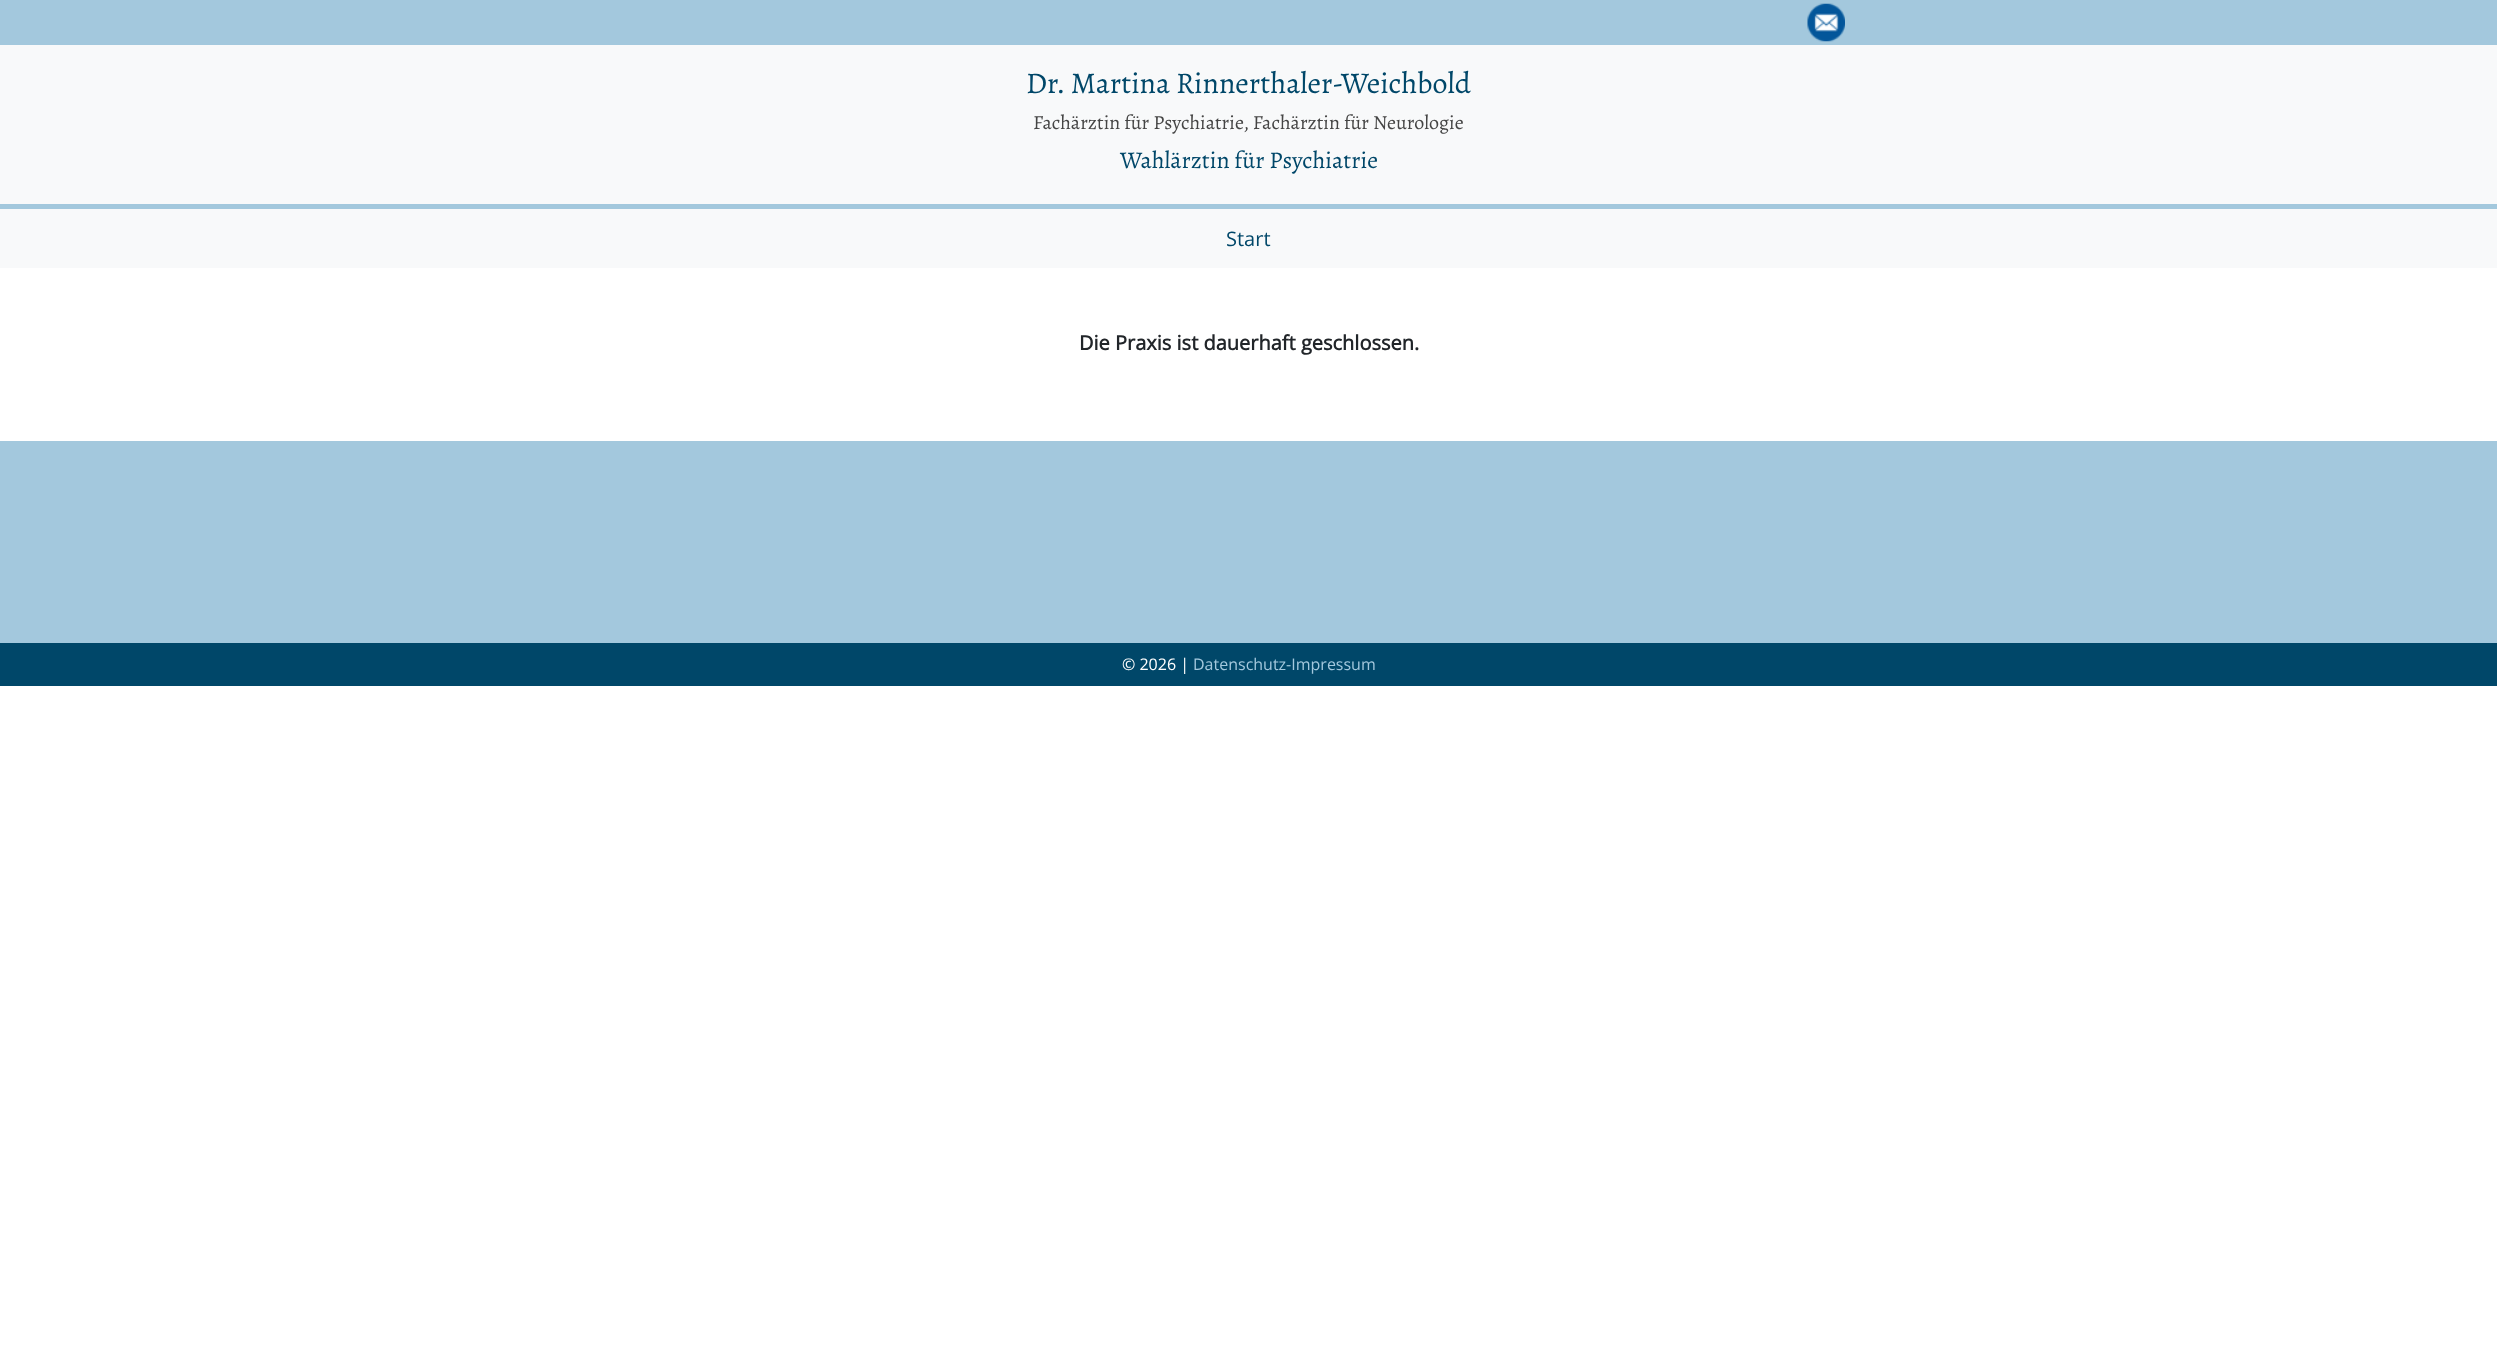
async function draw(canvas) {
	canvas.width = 2497;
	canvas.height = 1355;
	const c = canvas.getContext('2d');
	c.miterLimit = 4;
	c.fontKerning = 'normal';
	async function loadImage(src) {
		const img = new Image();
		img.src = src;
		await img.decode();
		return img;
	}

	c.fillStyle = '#fff';
	c.fillRect(0, 0, 2497, 1355);
	c.fillStyle = '#a3c8dd';
	c.fillRect(0, 0, 2497, 45);
	c.drawImage(await loadImage('img1.png'), 1807, 3, 38, 39);
	c.fillStyle = '#f8f9fa';
	c.fillRect(0, 45, 2497, 159);
	c.fillStyle = '#a3c8dd';
	c.fillRect(0, 204, 2497, 5);
	c.font = '30px Alegreya';
	c.fillStyle = '#004769';
	c.fillText('Dr. Martina Rinnerthaler', 1026, 93);
	c.fillText('-Weichbold', 1332, 93);
	c.font = '20px Alegreya';
	c.fillStyle = '#454545';
	c.fillText('Fachärztin für Psychiatrie, Fachärztin für Neurologie', 1033, 129);
	c.font = '24px Alegreya';
	c.fillStyle = '#004769';
	c.fillText('Wahlärztin für Psychiatrie', 1120, 168);
	c.fillStyle = '#f8f9fa';
	c.fillRect(0, 209, 2497, 59);
	c.font = '20px Open Sans';
	c.fillStyle = '#004769';
	c.fillText('Start', 1226, 246);
	c.font = 'bold 20px Open Sans';
	c.fillStyle = '#212529';
	c.fillText('Die Praxis ist dauerhaft geschlossen.', 1079, 350);
	c.fillStyle = '#a3c8dd';
	c.fillRect(0, 441, 2497, 202);
	c.fillStyle = '#004769';
	c.fillRect(0, 643, 2497, 43);
	c.font = '16px Open Sans';
	c.fillStyle = '#fff';
	c.fillText('© 2026 |', 1122, 670);
	c.fillStyle = '#a3c8dd';
	c.fillText('Datenschutz-Impressum', 1193, 670);
}

draw(document.querySelector('canvas'));
